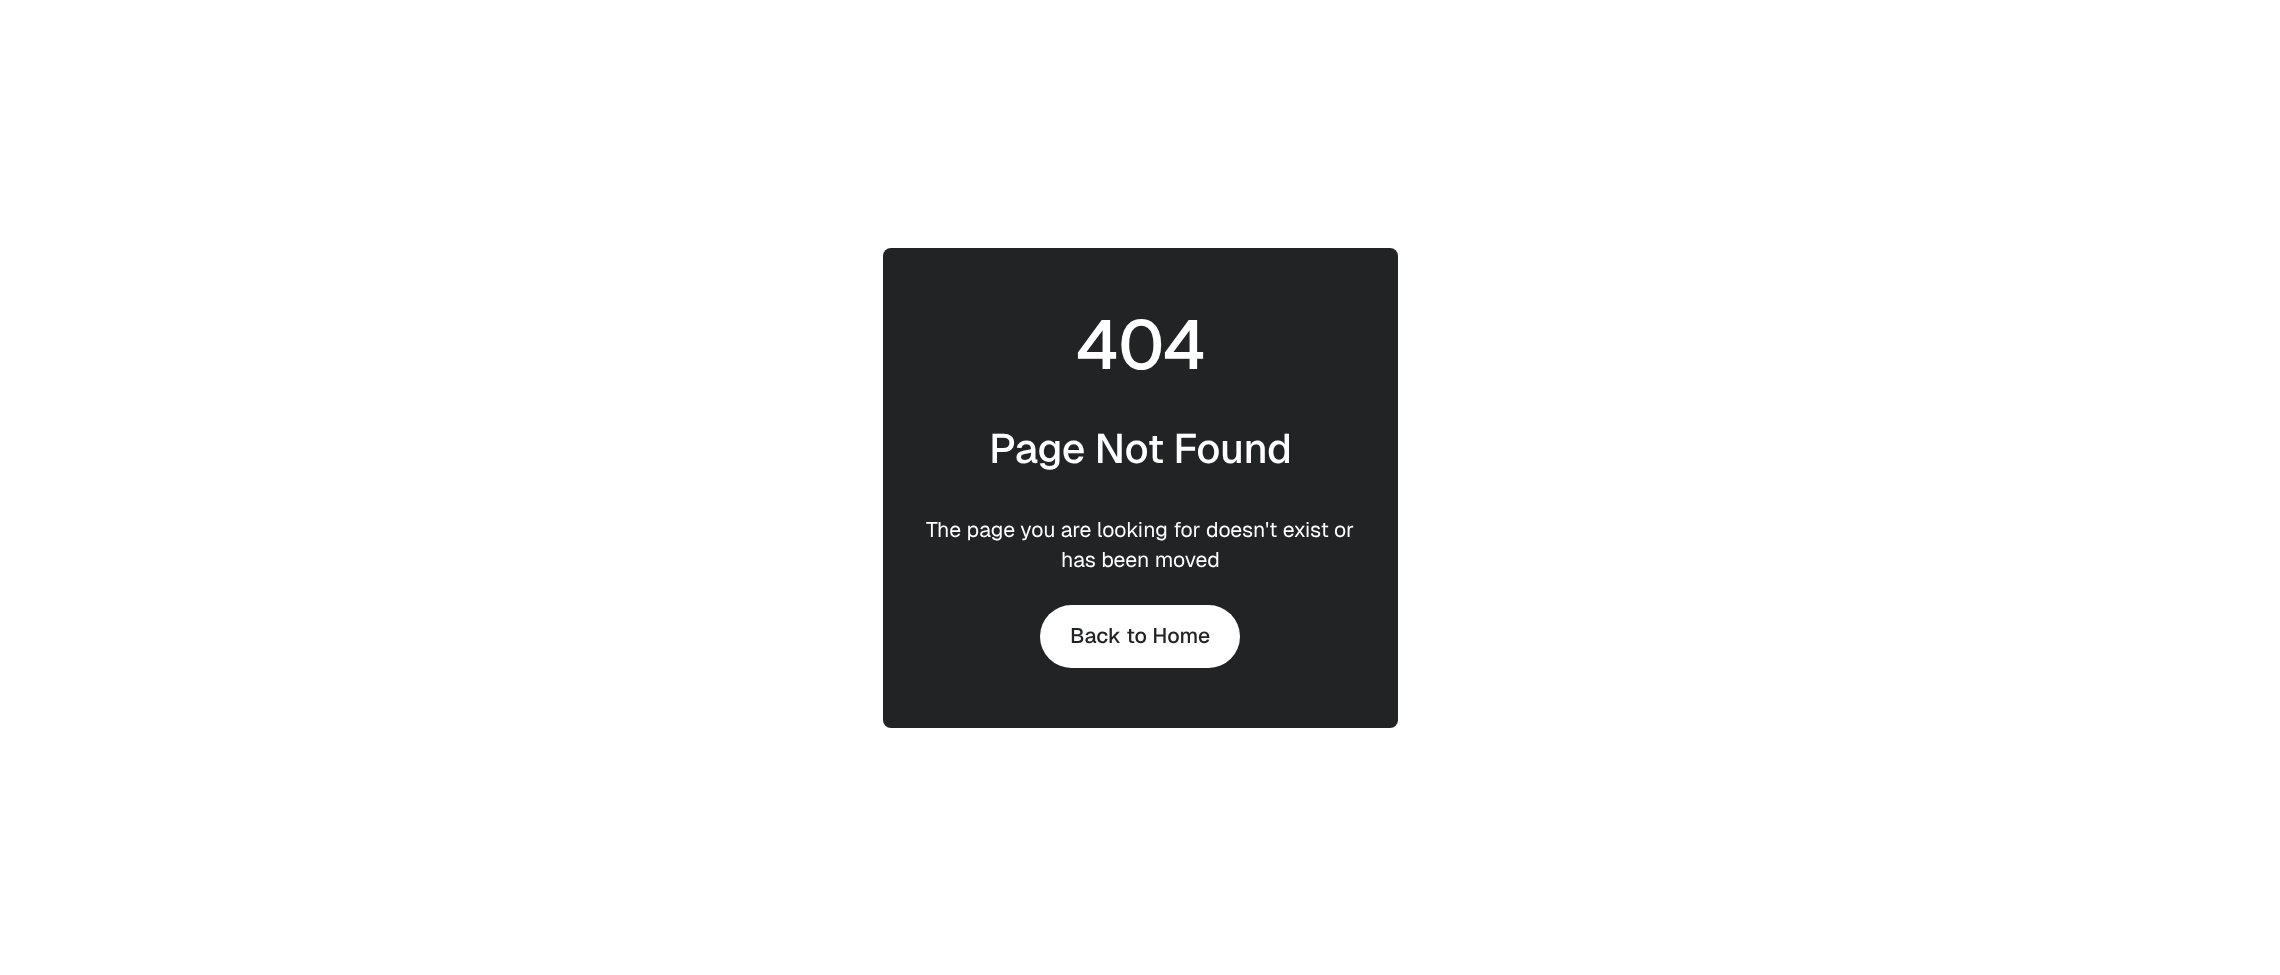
async function draw(canvas) {
	canvas.width = 2280;
	canvas.height = 975;
	const c = canvas.getContext('2d');
	c.miterLimit = 4;
	c.fontKerning = 'normal';

	c.fillStyle = '#fff';
	c.fillRect(0, 0, 2280, 975);
	c.fillStyle = '#222325';
	c.beginPath();
	c.roundRect(883, 248, 515, 480, 8);
	c.fill();
	c.letterSpacing = '-1.5px';
	c.font = '500 69px Geist';
	c.fillStyle = '#fff';
	c.fillText('404', 1076, 369);
	c.letterSpacing = '-0.4px';
	c.font = '500 41.25px Geist';
	c.fillText('Page Not Found', 989, 463);
	c.letterSpacing = '0px';
	c.font = '21.25px Geist';
	c.fillText('The page you are looking for doesn\'t exist or', 926, 537);
	c.fillText('has been moved', 1061, 567);
	c.beginPath();
	c.roundRect(1040, 605, 200, 63, 31.5);
	c.fill();
	c.font = '500 21.25px Geist';
	c.fillStyle = '#222325';
	c.fillText('Back to Home', 1070, 643);
}

draw(document.querySelector('canvas'));
